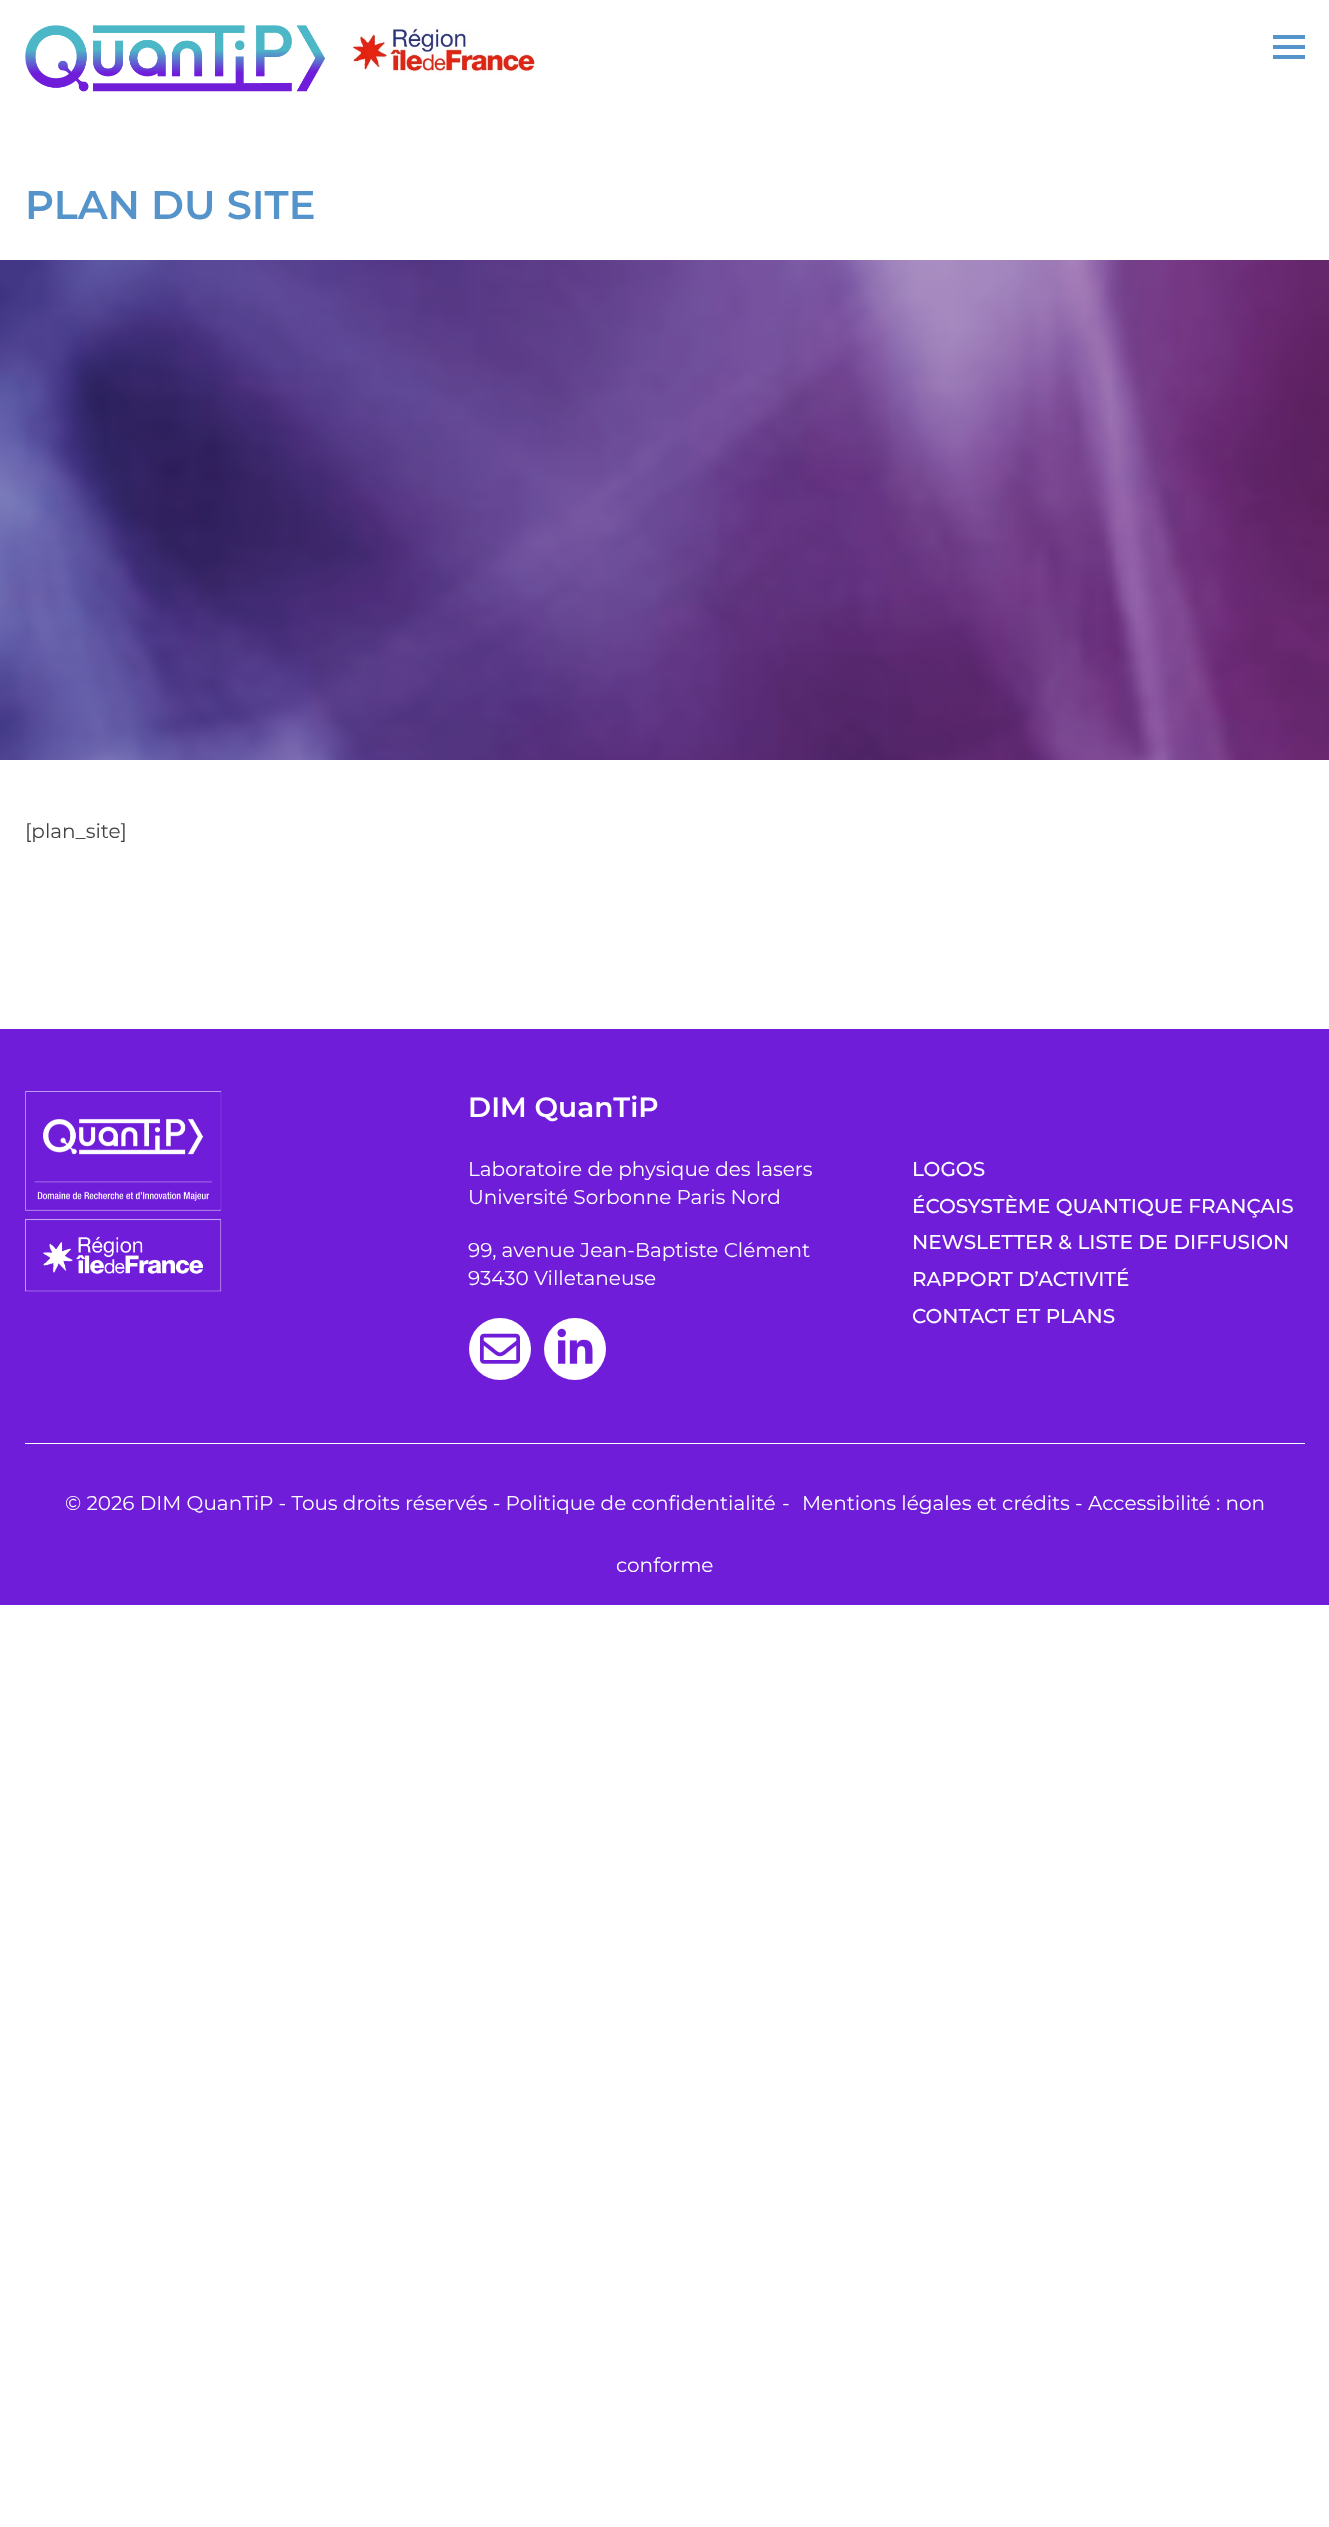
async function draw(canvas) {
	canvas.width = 1329;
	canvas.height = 2527;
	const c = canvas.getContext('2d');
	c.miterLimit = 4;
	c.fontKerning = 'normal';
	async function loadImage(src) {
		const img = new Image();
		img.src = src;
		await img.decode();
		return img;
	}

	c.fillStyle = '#fff';
	c.fillRect(0, 0, 1329, 2527);
	c.drawImage(await loadImage('img1.png'), 25, 25, 300, 67);
	c.drawImage(await loadImage('img2.png'), 350, 28, 188, 46);
	for (const [x, y, w, h, color] of [
		[1273, 35, 32, 4, '#5494ca'],
		[1273, 45, 32, 4, '#5494ca'],
		[1273, 55, 32, 4, '#5494ca'],
	]) {
		c.fillStyle = color;
		c.fillRect(x, y, w, h);
	}
	c.font = '600 40px Montserrat';
	c.fillText('PLAN DU SITE', 25, 219);
	c.drawImage(await loadImage('img3.png'), 0, 260, 1329, 500);
	c.font = '20px Montserrat';
	c.fillStyle = '#444141';
	c.fillText('[plan_site]', 25, 838);
	c.fillStyle = '#701dda';
	c.fillRect(0, 1029, 1329, 576);
	c.drawImage(await loadImage('img4.png'), 25, 1091, 197, 201);
	c.font = '600 28px Montserrat';
	c.fillStyle = '#fff';
	c.fillText('DIM QuanTiP', 468, 1117);
	c.font = '20px Montserrat';
	for (const [text, x, y] of [
		['Laboratoire de physique des lasers', 468, 1176],
		['Université Sorbonne Paris Nord', 468, 1204],
		['99, avenue Jean-Baptiste Clément', 468, 1257],
		['93430 Villetaneuse', 468, 1285],
	]) {
		c.fillText(text, x, y);
	}
	c.beginPath();
	c.arc(500, 1349, 31, 0, 2 * Math.PI);
	c.fill();
	c.drawImage(await loadImage('img5.png'), 480, 1333, 40, 31);
	c.beginPath();
	c.arc(575, 1349, 31, 0, 2 * Math.PI);
	c.fill();
	c.drawImage(await loadImage('img6.png'), 557, 1328, 36, 36);
	c.font = '500 20px Montserrat';
	for (const [text, x, y] of [
		['LOGOS', 912, 1176],
		['ÉCOSYSTÈME QUANTIQUE FRANÇAIS', 912, 1213],
		['NEWSLETTER & LISTE DE DIFFUSION', 912, 1249],
		['RAPPORT D’ACTIVITÉ', 912, 1286],
		['CONTACT ET PLANS', 912, 1323],
	]) {
		c.fillText(text, x, y);
	}
	c.fillRect(25, 1443, 1280, 1);
	c.font = '20px Montserrat';
	for (const [text, x, y] of [
		['© 2026 DIM QuanTiP - Tous droits réservés - Politique de confidentialité', 65, 1510],
		['-', 782, 1510],
		['Mentions légales et crédits - Accessibilité : non', 802, 1510],
		['conforme', 616, 1572],
	]) {
		c.fillText(text, x, y);
	}
}

draw(document.querySelector('canvas'));
